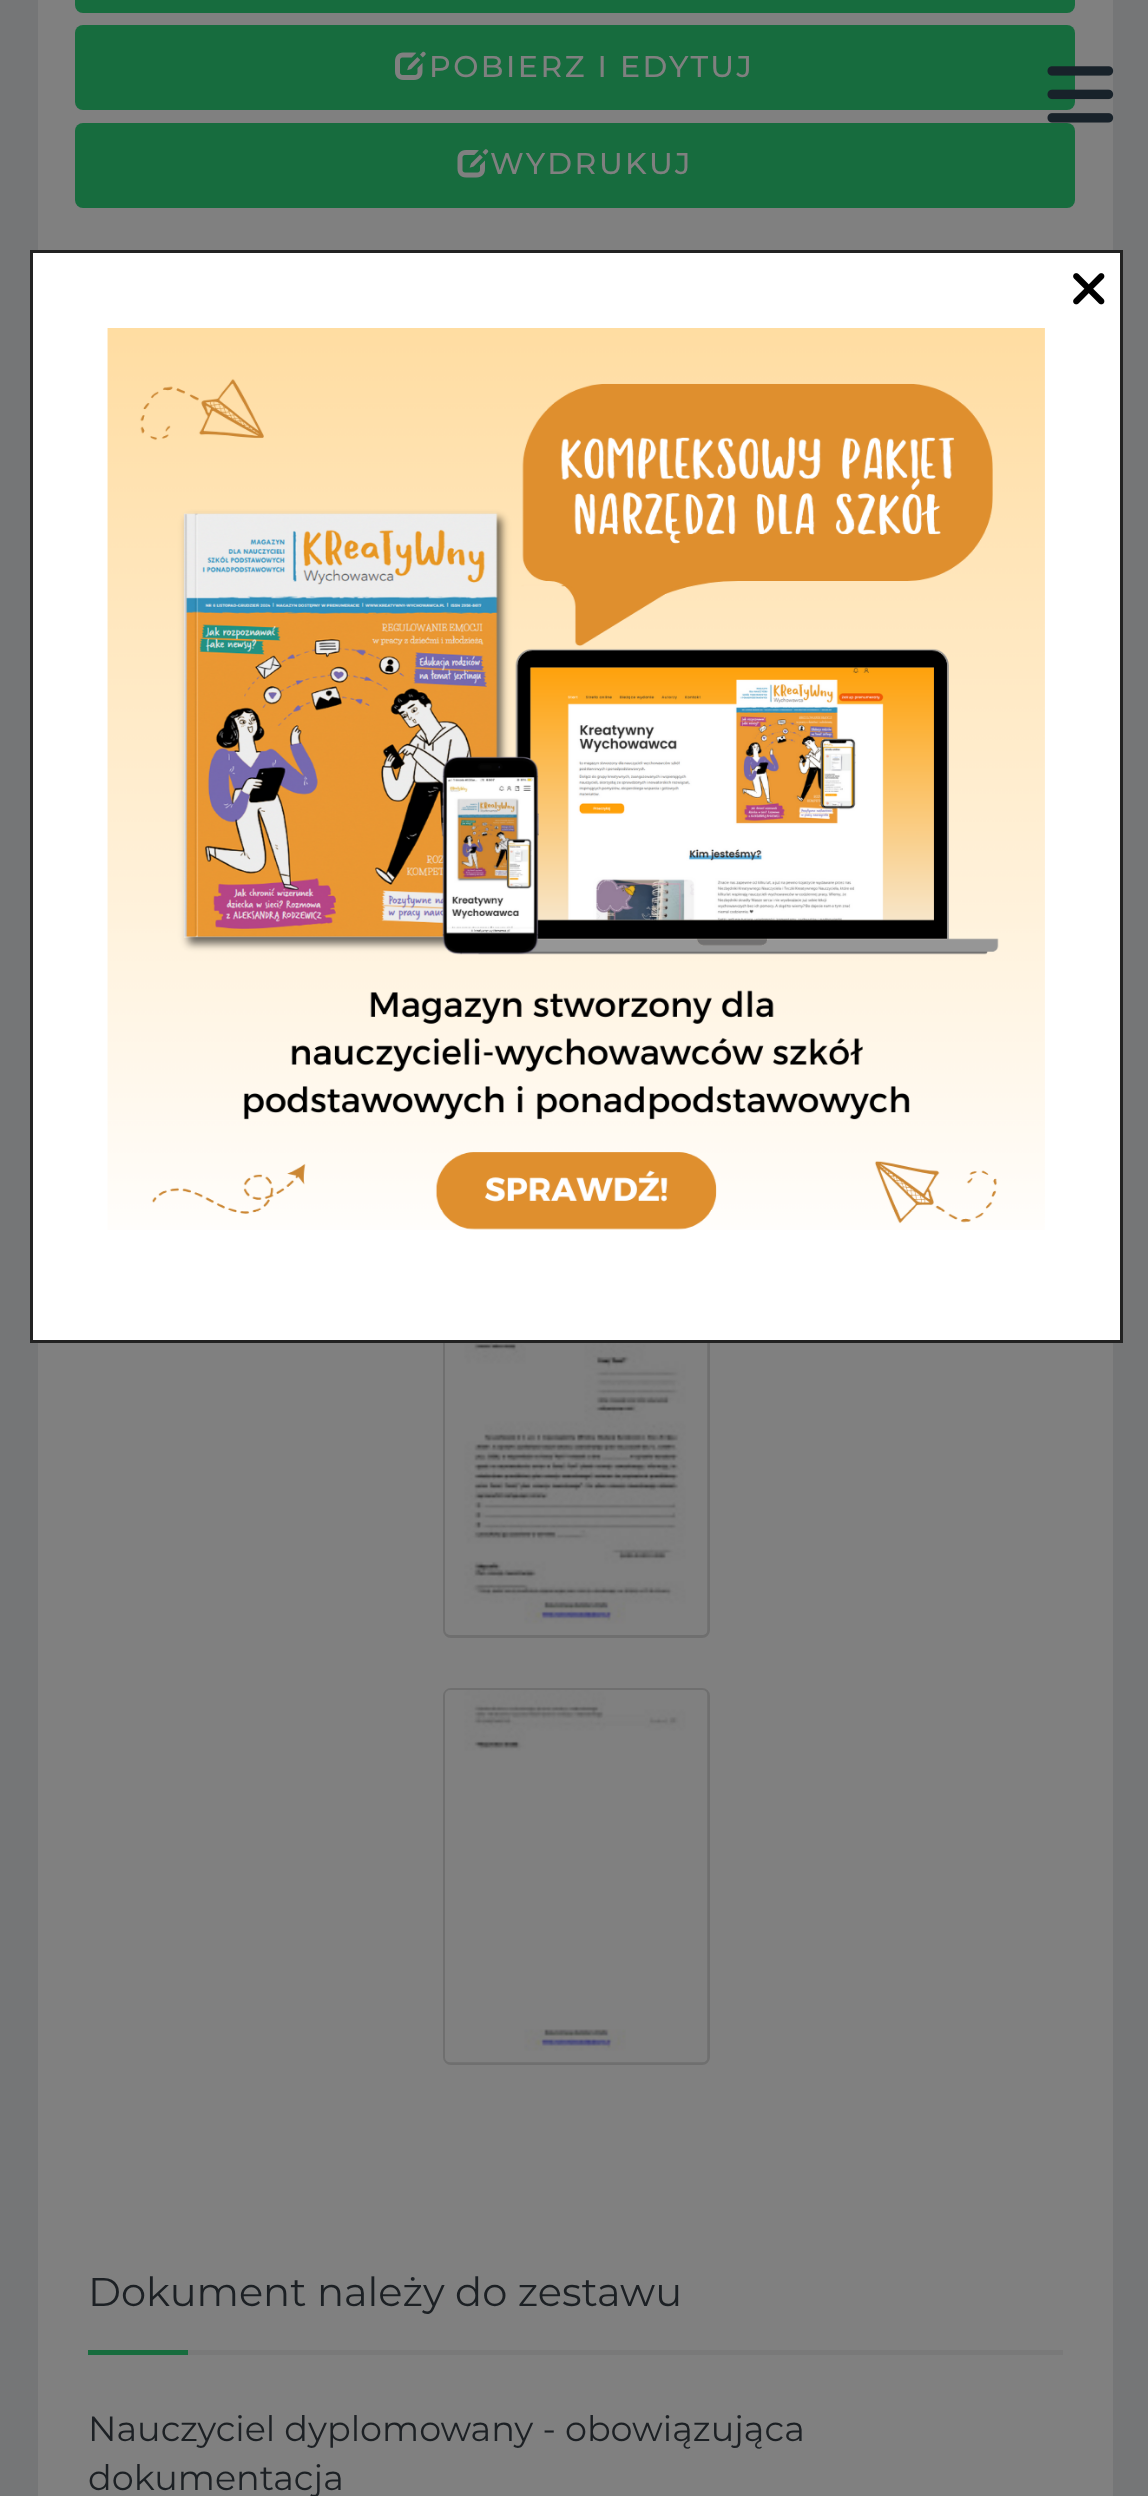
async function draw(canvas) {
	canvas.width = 1148;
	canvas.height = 2496;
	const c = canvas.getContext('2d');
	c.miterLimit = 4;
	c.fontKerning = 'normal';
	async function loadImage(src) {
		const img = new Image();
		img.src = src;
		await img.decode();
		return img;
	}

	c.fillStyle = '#757677';
	c.fillRect(0, 0, 1148, 2496);
	c.fillStyle = '#808080';
	c.fillRect(38, 0, 1075, 250);
	c.fillStyle = '#176c3e';
	c.beginPath();
	c.roundRect(75, -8, 1000, 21, 8);
	c.fill();
	c.beginPath();
	c.roundRect(75, 25, 1000, 85, 8);
	c.fill();
	c.drawImage(await loadImage('img1.png'), 395, 51, 31, 29);
	c.letterSpacing = '2.5px';
	c.font = '500 30px Montserrat';
	c.fillStyle = '#808080';
	c.fillText('POBIERZ I EDYTUJ', 429, 77);
	c.fillStyle = '#176c3e';
	c.beginPath();
	c.roundRect(75, 123, 1000, 85, 8);
	c.fill();
	c.drawImage(await loadImage('img2.png'), 457, 149, 32, 29);
	c.fillStyle = '#808080';
	c.fillText('WYDRUKUJ', 490, 174);
	c.fillRect(38, 1343, 1075, 1153);
	c.beginPath();
	c.roundRect(444.5, 1261.5, 264, 375, 6.5);
	c.strokeStyle = '#6f6f6f';
	c.lineWidth = 3;
	c.stroke();
	c.drawImage(await loadImage('img3.png'), 445, 1343, 263, 292);
	c.beginPath();
	c.roundRect(444.5, 1689.5, 264, 374, 6.5);
	c.stroke();
	c.drawImage(await loadImage('img4.png'), 445, 1690, 263, 373);
	c.letterSpacing = '0px';
	c.font = '40px Montserrat';
	c.fillStyle = '#1c2024';
	c.fillText('Dokument należy do zestawu', 88, 2306);
	c.fillStyle = '#176c3e';
	c.fillRect(88, 2350, 100, 5);
	c.fillStyle = '#797979';
	c.fillRect(188, 2350, 875, 5);
	c.font = '35px Montserrat';
	c.fillStyle = '#1c2024';
	c.fillText('Nauczyciel dyplomowany - obowiązująca', 88, 2441);
	c.fillText('dokumentacja', 88, 2490);
	c.drawImage(await loadImage('img5.png'), 1047, 66, 67, 57);
	c.fillStyle = '#fff';
	c.beginPath();
	c.rect(31.5, 251.5, 1090, 1090);
	c.fill();
	c.strokeStyle = '#222';
	c.stroke();
	c.drawImage(await loadImage('img6.png'), 1073, 273, 32, 32);
	c.drawImage(await loadImage('img7.png'), 107, 328, 938, 902);
}

draw(document.querySelector('canvas'));
